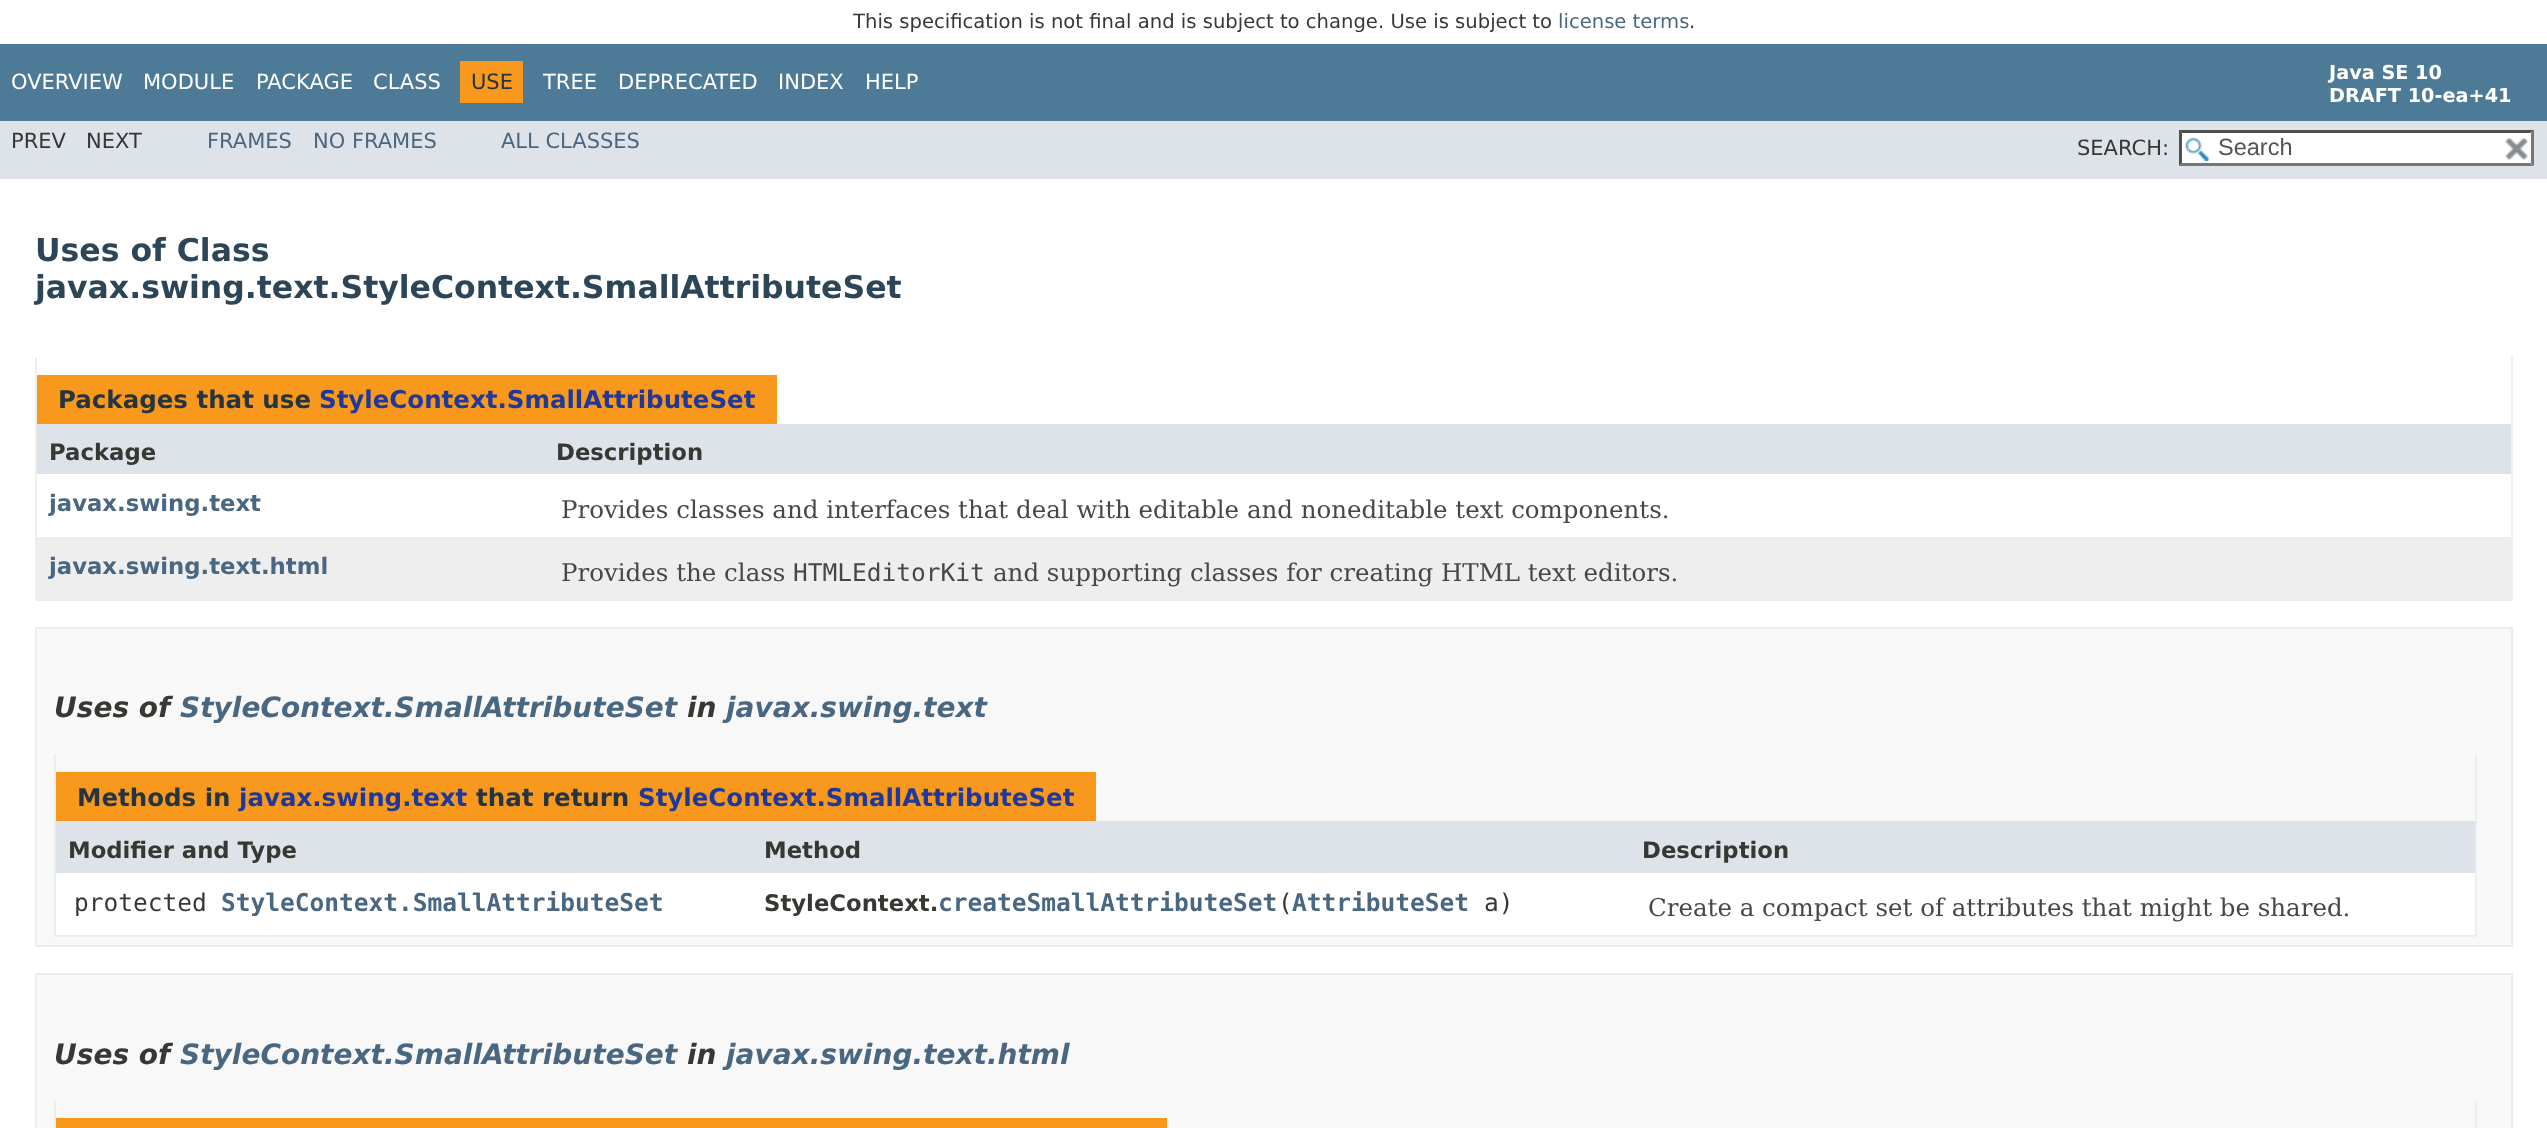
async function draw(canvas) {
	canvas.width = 2547;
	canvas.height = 1128;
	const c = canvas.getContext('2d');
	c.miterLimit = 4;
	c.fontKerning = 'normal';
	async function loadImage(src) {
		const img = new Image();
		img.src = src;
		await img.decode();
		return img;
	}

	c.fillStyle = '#fff';
	c.fillRect(0, 0, 2547, 1128);
	c.font = '19.6px DejaVu Sans';
	c.fillStyle = '#353833';
	c.fillText('This specification is not final and is subject to change. Use is subject to', 853, 28);
	c.fillStyle = '#4a6782';
	c.fillText('license terms', 1558, 28);
	c.fillStyle = '#353833';
	c.fillText('.', 1689, 28);
	c.fillStyle = '#4d7a97';
	c.fillRect(0, 44, 2547, 77);
	c.font = '21px DejaVu Sans';
	c.fillStyle = '#fff';
	for (const [text, x, y] of [
		['OVERVIEW', 11, 89],
		['MODULE', 143, 89],
		['PACKAGE', 256, 89],
		['CLASS', 373, 89],
	]) {
		c.fillText(text, x, y);
	}
	c.fillStyle = '#f8981d';
	c.fillRect(460, 61, 63, 42);
	c.fillStyle = '#253441';
	c.fillText('USE', 471, 89);
	c.fillStyle = '#fff';
	for (const [text, x, y] of [
		['TREE', 543, 89],
		['DEPRECATED', 618, 89],
		['INDEX', 778, 89],
		['HELP', 865, 89],
	]) {
		c.fillText(text, x, y);
	}
	c.font = 'bold 19.25px DejaVu Sans';
	c.fillText('Java SE 10', 2329, 79);
	c.fillText('DRAFT 10-ea+41', 2329, 102);
	c.fillStyle = '#dee3e9';
	c.fillRect(0, 121, 2547, 58);
	c.font = '21px DejaVu Sans';
	c.fillStyle = '#353833';
	c.fillText('PREV', 11, 148);
	c.fillText('NEXT', 86, 148);
	c.fillStyle = '#4a6782';
	for (const [text, x, y] of [
		['FRAMES', 207, 148],
		['NO FRAMES', 313, 148],
		['ALL CLASSES', 501, 148],
	]) {
		c.fillText(text, x, y);
	}
	c.fillStyle = '#353833';
	c.fillText('SEARCH:', 2077, 155);
	c.fillStyle = '#fff';
	c.fillRect(2179, 130, 355, 36);
	c.drawImage(await loadImage('img1.png'), 2185, 138, 24, 23);
	c.fillStyle = '#4f4f4f';
	c.beginPath();
	c.moveTo(2179, 130);
	c.lineTo(2534, 130);
	c.lineTo(2530, 133);
	c.lineTo(2182, 133);
	c.closePath();
	c.fill();
	c.fillStyle = '#767676';
	c.beginPath();
	c.moveTo(2534, 129.5);
	c.lineTo(2534, 166);
	c.lineTo(2530.5, 163);
	c.lineTo(2530.5, 133);
	c.closePath();
	c.fill();
	c.beginPath();
	c.moveTo(2534, 166);
	c.lineTo(2179, 166);
	c.lineTo(2182, 163);
	c.lineTo(2530, 163);
	c.closePath();
	c.fill();
	c.fillStyle = '#4f4f4f';
	c.beginPath();
	c.moveTo(2179, 166);
	c.lineTo(2179, 129.5);
	c.lineTo(2182, 133);
	c.lineTo(2182, 163);
	c.closePath();
	c.fill();
	c.font = '23.5px Liberation Sans';
	c.fillStyle = '#545454';
	c.fillText('Search', 2218, 155);
	c.fillStyle = '#fff';
	c.fillRect(2530, 133, 1, 30);
	c.drawImage(await loadImage('img2.png'), 2505, 138, 23, 22);
	c.font = 'bold 31.5px DejaVu Sans';
	c.fillStyle = '#2c4557';
	c.fillText('Uses of Class', 35, 261);
	c.fillText('javax.swing.text.StyleContext.SmallAttributeSet', 35, 298);
	for (const [x, y, w, h, color] of [
		[2511, 357, 2, 243, '#eee'],
		[35, 599, 2478, 2, '#eee'],
		[35, 357, 2, 243, '#eee'],
		[37, 375, 740, 49, '#f8981d'],
	]) {
		c.fillStyle = color;
		c.fillRect(x, y, w, h);
	}
	c.font = 'bold 24.5px DejaVu Sans';
	c.fillStyle = '#253441';
	c.fillText('Packages that use', 58, 408);
	c.fillStyle = '#1f389c';
	c.fillText('StyleContext.SmallAttributeSet', 319, 408);
	c.fillStyle = '#dee3e9';
	c.fillRect(37, 424, 2474, 50);
	c.font = 'bold 22.75px DejaVu Sans';
	c.fillStyle = '#353833';
	c.fillText('Package', 49, 460);
	c.fillText('Description', 556, 460);
	c.fillStyle = '#4a6782';
	c.fillText('javax.swing.text', 49, 511);
	c.font = '24.5px DejaVu Serif';
	c.fillStyle = '#474747';
	c.fillText('Provides classes and interfaces that deal with editable and noneditable text components.', 561, 518);
	c.fillStyle = '#eeeeef';
	c.fillRect(37, 537, 2474, 62);
	c.font = 'bold 22.75px DejaVu Sans';
	c.fillStyle = '#4a6782';
	c.fillText('javax.swing.text.html', 49, 574);
	c.font = '24.5px DejaVu Serif';
	c.fillStyle = '#474747';
	c.fillText('Provides the class', 561, 581);
	c.font = '24.5px DejaVu Sans Mono';
	c.fillText('HTMLEditorKit', 793, 581);
	c.font = '24.5px DejaVu Serif';
	c.fillText('and supporting classes for creating HTML text editors.', 993, 581);
	c.fillStyle = '#f8f8f8';
	c.beginPath();
	c.rect(36, 628, 2476, 318);
	c.fill();
	c.strokeStyle = '#ededed';
	c.lineWidth = 2;
	c.stroke();
	c.font = 'italic bold 28px DejaVu Sans';
	c.fillStyle = '#353833';
	c.fillText('Uses of', 54, 717);
	c.fillStyle = '#4a6782';
	c.fillText('StyleContext.SmallAttributeSet', 180, 717);
	c.fillStyle = '#353833';
	c.fillText('in', 687, 717);
	c.fillStyle = '#4a6782';
	c.fillText('javax.swing.text', 726, 717);
	for (const [x, y, w, h, color] of [
		[2475, 754, 2, 182, '#eee'],
		[54, 935, 2422, 2, '#eee'],
		[54, 754, 2, 182, '#eee'],
		[56, 772, 1040, 49, '#f8981d'],
	]) {
		c.fillStyle = color;
		c.fillRect(x, y, w, h);
	}
	c.font = 'bold 24.5px DejaVu Sans';
	c.fillStyle = '#253441';
	c.fillText('Methods in', 77, 806);
	c.fillStyle = '#1f389c';
	c.fillText('javax.swing.text', 239, 806);
	c.fillStyle = '#253441';
	c.fillText('that return', 476, 806);
	c.fillStyle = '#1f389c';
	c.fillText('StyleContext.SmallAttributeSet', 638, 806);
	c.fillStyle = '#dee3e9';
	c.fillRect(56, 821, 2419, 52);
	c.font = 'bold 22.75px DejaVu Sans';
	c.fillStyle = '#353833';
	for (const [text, x, y] of [
		['Modifier and Type', 68, 858],
		['Method', 764, 858],
		['Description', 1642, 858],
	]) {
		c.fillText(text, x, y);
	}
	c.fillStyle = '#fff';
	c.fillRect(56, 873, 2419, 62);
	c.font = '24.5px DejaVu Sans Mono';
	c.fillStyle = '#353833';
	c.fillText('protected', 74, 911);
	c.font = 'bold 24.5px DejaVu Sans Mono';
	c.fillStyle = '#4a6782';
	c.fillText('StyleContext.SmallAttributeSet', 221, 911);
	c.fillText('createSmallAttributeSet AttributeSet', 938, 911);
	c.font = 'bold 22.75px DejaVu Sans';
	c.fillStyle = '#353833';
	c.fillText('StyleContext.', 764, 911);
	c.font = '24.5px DejaVu Sans Mono';
	c.fillText('(', 1278, 911);
	c.fillText('a)', 1484, 911);
	c.font = '24.5px DejaVu Serif';
	c.fillStyle = '#474747';
	c.fillText('Create a compact set of attributes that might be shared.', 1648, 916);
	c.fillStyle = '#f8f8f8';
	c.beginPath();
	c.rect(36, 974, 2476, 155);
	c.fill();
	c.stroke();
	c.font = 'italic bold 28px DejaVu Sans';
	c.fillStyle = '#353833';
	c.fillText('Uses of', 54, 1064);
	c.fillStyle = '#4a6782';
	c.fillText('StyleContext.SmallAttributeSet', 180, 1064);
	c.fillStyle = '#353833';
	c.fillText('in', 687, 1064);
	c.fillStyle = '#4a6782';
	c.fillText('javax.swing.text.html', 726, 1064);
	for (const [x, y, w, h, color] of [
		[2475, 1101, 2, 27, '#eee'],
		[54, 1101, 2, 27, '#eee'],
		[56, 1118, 1111, 10, '#f8981d'],
	]) {
		c.fillStyle = color;
		c.fillRect(x, y, w, h);
	}
}

draw(document.querySelector('canvas'));
